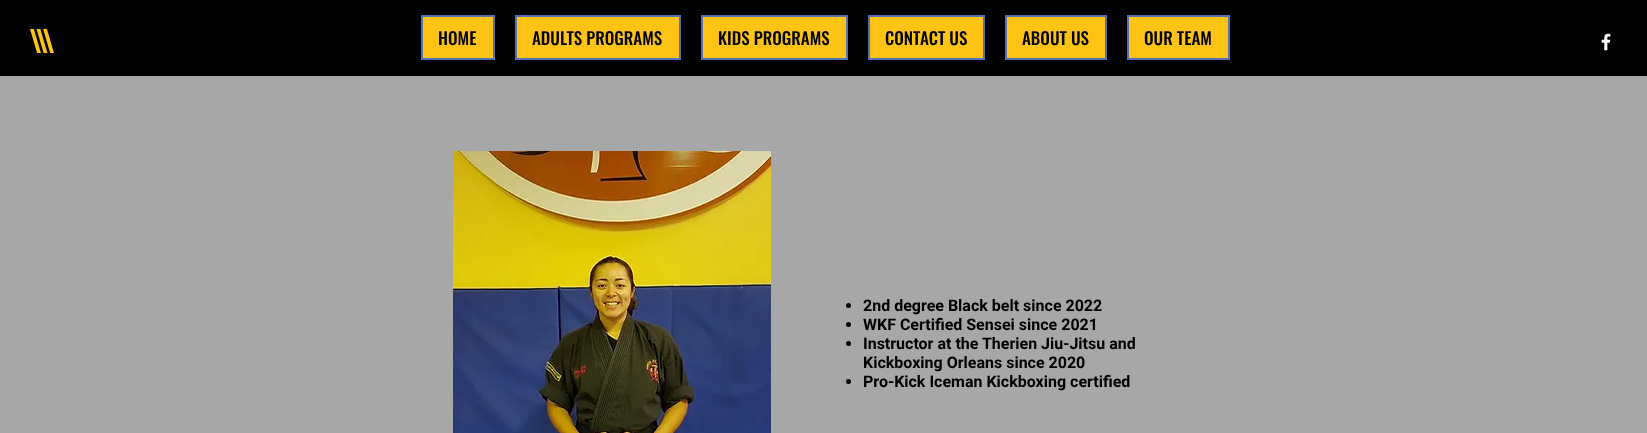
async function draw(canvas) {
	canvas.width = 1647;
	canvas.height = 433;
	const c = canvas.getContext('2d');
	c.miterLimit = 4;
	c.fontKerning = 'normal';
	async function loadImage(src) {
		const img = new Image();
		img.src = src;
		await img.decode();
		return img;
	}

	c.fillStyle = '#a7a7a7';
	c.fillRect(0, 0, 1647, 433);
	c.fillStyle = '#000';
	c.fillRect(0, 0, 1647, 76);
	c.drawImage(await loadImage('img1.png'), 30, 29, 24, 24);
	c.fillStyle = '#ffc314';
	c.beginPath();
	c.rect(422, 16, 72, 43);
	c.fill();
	c.strokeStyle = '#566fb8';
	c.lineWidth = 2;
	c.stroke();
	c.font = '500 17px Oswald';
	c.fillStyle = '#000';
	c.fillText('HOME', 438, 45);
	c.fillStyle = '#ffc314';
	c.beginPath();
	c.rect(516, 16, 164, 43);
	c.fill();
	c.stroke();
	c.fillStyle = '#000';
	c.fillText('ADULTS PROGRAMS', 532, 45);
	c.fillStyle = '#ffc314';
	c.beginPath();
	c.rect(702, 16, 145, 43);
	c.fill();
	c.stroke();
	c.fillStyle = '#000';
	c.fillText('KIDS PROGRAMS', 718, 45);
	c.fillStyle = '#ffc314';
	c.beginPath();
	c.rect(869, 16, 115, 43);
	c.fill();
	c.stroke();
	c.fillStyle = '#000';
	c.fillText('CONTACT US', 885, 45);
	c.fillStyle = '#ffc314';
	c.beginPath();
	c.rect(1006, 16, 100, 43);
	c.fill();
	c.stroke();
	c.fillStyle = '#000';
	c.fillText('ABOUT US', 1022, 45);
	c.fillStyle = '#ffc314';
	c.beginPath();
	c.rect(1128, 16, 101, 43);
	c.fill();
	c.stroke();
	c.fillStyle = '#000';
	c.fillText('OUR TEAM', 1144, 45);
	c.drawImage(await loadImage('img2.png'), 1601, 33, 10, 18);
	c.drawImage(await loadImage('img3.png'), 453, 151, 318, 282);
	c.beginPath();
	c.arc(848.5, 305.5, 2.5, 0, 2 * Math.PI);
	c.fill();
	c.font = 'bold 16px Roboto';
	c.fillText('2nd degree Black belt since 2022', 863, 311);
	c.beginPath();
	c.arc(848.5, 324.5, 2.5, 0, 2 * Math.PI);
	c.fill();
	c.fillText('WKF Certified Sensei since 2021', 863, 330);
	c.beginPath();
	c.arc(848.5, 343.5, 2.5, 0, 2 * Math.PI);
	c.fill();
	c.fillText('Instructor at the Therien Jiu-Jitsu and', 863, 349);
	c.fillText('Kickboxing Orleans since 2020', 863, 368);
	c.beginPath();
	c.arc(848.5, 381.5, 2.5, 0, 2 * Math.PI);
	c.fill();
	c.fillText('Pro-Kick Iceman Kickboxing certified', 863, 387);
}

draw(document.querySelector('canvas'));
